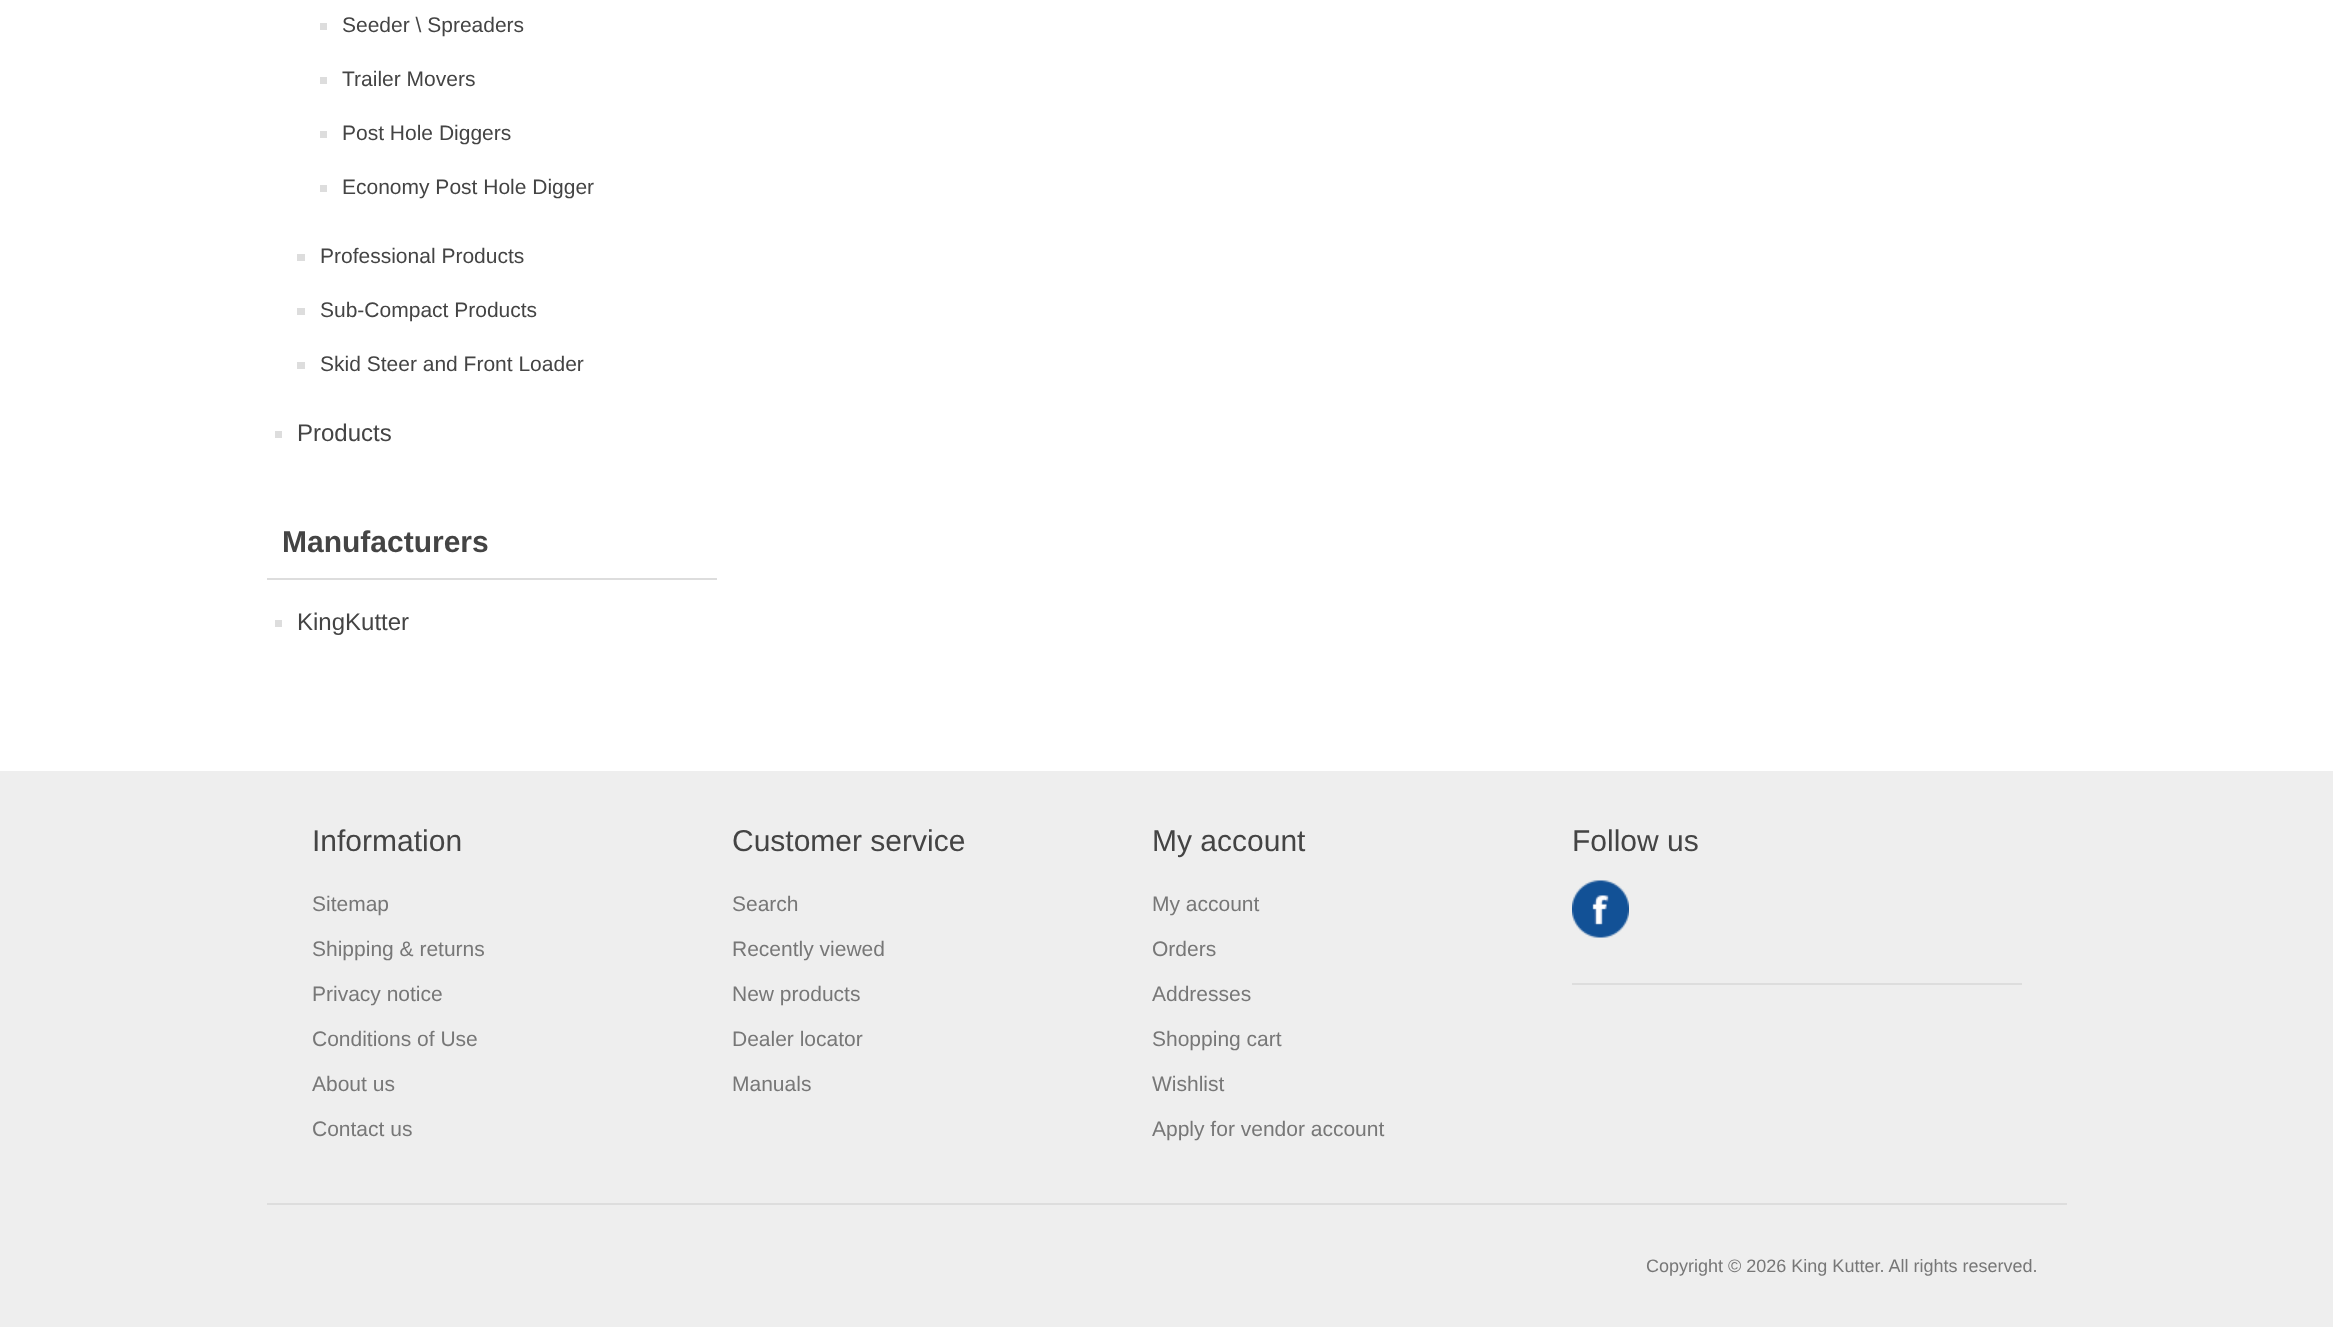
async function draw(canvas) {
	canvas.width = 2333;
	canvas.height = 1327;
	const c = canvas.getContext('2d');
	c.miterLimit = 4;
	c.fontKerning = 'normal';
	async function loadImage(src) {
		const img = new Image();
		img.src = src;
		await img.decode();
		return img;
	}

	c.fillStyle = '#fff';
	c.fillRect(0, 0, 2333, 1327);
	c.fillStyle = '#ddd';
	c.fillRect(320, 23, 7, 7);
	c.font = '21px Liberation Sans';
	c.fillStyle = '#444';
	c.fillText('Seeder \\ Spreaders', 342, 32);
	c.fillStyle = '#ddd';
	c.fillRect(320, 77, 7, 7);
	c.fillStyle = '#444';
	c.fillText('Trailer Movers', 342, 86);
	c.fillStyle = '#ddd';
	c.fillRect(320, 131, 7, 7);
	c.fillStyle = '#444';
	c.fillText('Post Hole Diggers', 342, 140);
	c.fillStyle = '#ddd';
	c.fillRect(320, 185, 7, 7);
	c.fillStyle = '#444';
	c.fillText('Economy Post Hole Digger', 342, 194);
	c.fillStyle = '#ddd';
	c.fillRect(297, 254, 8, 7);
	c.fillStyle = '#444';
	c.fillText('Professional Products', 320, 263);
	c.fillStyle = '#ddd';
	c.fillRect(297, 308, 8, 7);
	c.fillStyle = '#444';
	c.fillText('Sub-Compact Products', 320, 317);
	c.fillStyle = '#ddd';
	c.fillRect(297, 362, 8, 7);
	c.fillStyle = '#444';
	c.fillText('Skid Steer and Front Loader', 320, 371);
	c.fillStyle = '#ddd';
	c.fillRect(275, 431, 7, 7);
	c.font = '24px Liberation Sans';
	c.fillStyle = '#444';
	c.fillText('Products', 297, 441);
	c.fillStyle = '#ddd';
	c.fillRect(267, 578, 450, 2);
	c.font = 'bold 30px Liberation Sans';
	c.fillStyle = '#444';
	c.fillText('Manufacturers', 282, 552);
	c.fillStyle = '#ddd';
	c.fillRect(275, 620, 7, 7);
	c.font = '24px Liberation Sans';
	c.fillStyle = '#444';
	c.fillText('KingKutter', 297, 630);
	c.fillStyle = '#eee';
	c.fillRect(0, 771, 2333, 556);
	c.fillStyle = '#ddd';
	c.fillRect(267, 1203, 1800, 2);
	c.font = '30px Liberation Sans';
	c.fillStyle = '#444';
	c.fillText('Information', 312, 851);
	c.font = '21px Liberation Sans';
	c.fillStyle = '#777';
	for (const [text, x, y] of [
		['Sitemap', 312, 911],
		['Shipping & returns', 312, 956],
		['Privacy notice', 312, 1001],
		['Conditions of Use', 312, 1046],
		['About us', 312, 1091],
		['Contact us', 312, 1136],
	]) {
		c.fillText(text, x, y);
	}
	c.font = '30px Liberation Sans';
	c.fillStyle = '#444';
	c.fillText('Customer service', 732, 851);
	c.font = '21px Liberation Sans';
	c.fillStyle = '#777';
	for (const [text, x, y] of [
		['Search', 732, 911],
		['Recently viewed', 732, 956],
		['New products', 732, 1001],
		['Dealer locator', 732, 1046],
		['Manuals', 732, 1091],
	]) {
		c.fillText(text, x, y);
	}
	c.font = '30px Liberation Sans';
	c.fillStyle = '#444';
	c.fillText('My account', 1152, 851);
	c.font = '21px Liberation Sans';
	c.fillStyle = '#777';
	for (const [text, x, y] of [
		['My account', 1152, 911],
		['Orders', 1152, 956],
		['Addresses', 1152, 1001],
		['Shopping cart', 1152, 1046],
		['Wishlist', 1152, 1091],
		['Apply for vendor account', 1152, 1136],
	]) {
		c.fillText(text, x, y);
	}
	c.font = '30px Liberation Sans';
	c.fillStyle = '#444';
	c.fillText('Follow us', 1572, 851);
	c.fillStyle = '#ddd';
	c.fillRect(1572, 983, 450, 2);
	c.drawImage(await loadImage('img1.png'), 1572, 880, 57, 58);
	c.font = '18px Liberation Sans';
	c.fillStyle = '#777';
	c.fillText('Copyright © 2026 King Kutter. All rights reserved.', 1646, 1272);
}

draw(document.querySelector('canvas'));
